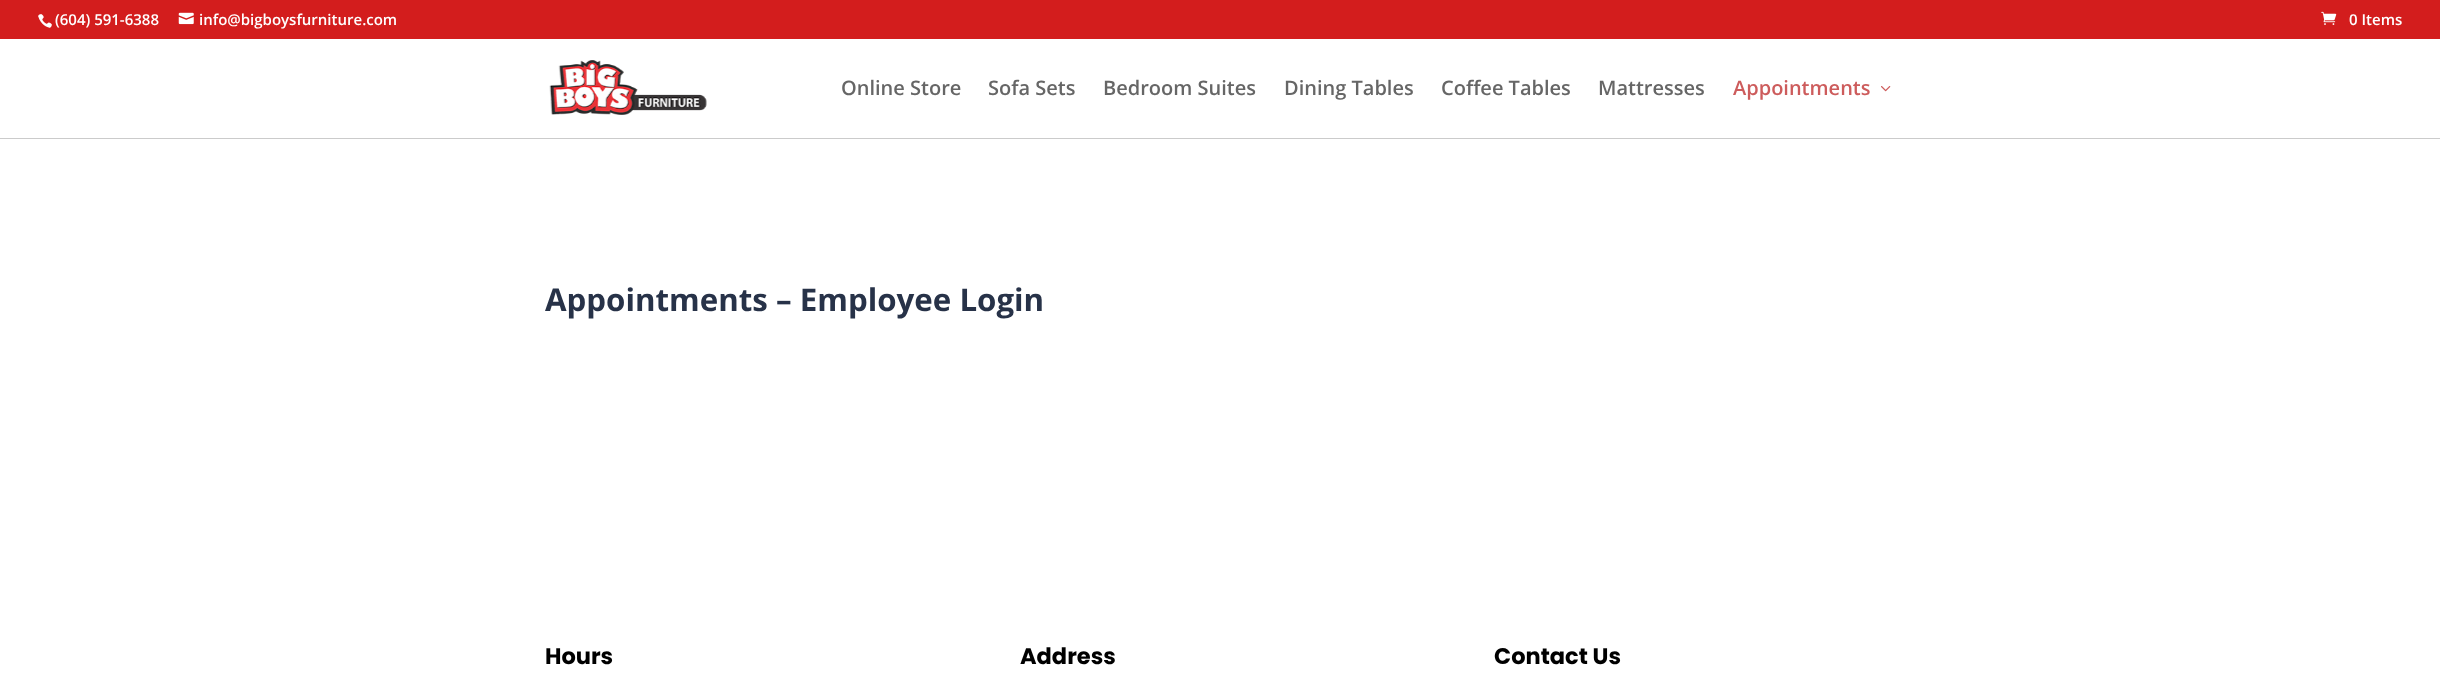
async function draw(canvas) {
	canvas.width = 2440;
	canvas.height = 678;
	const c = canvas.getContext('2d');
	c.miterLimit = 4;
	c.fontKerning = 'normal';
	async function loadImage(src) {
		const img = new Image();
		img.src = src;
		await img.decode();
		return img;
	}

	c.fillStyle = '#fff';
	c.fillRect(0, 0, 2440, 678);
	c.fillStyle = '#d31d1d';
	c.fillRect(0, 0, 2440, 39);
	c.drawImage(await loadImage('img1.png'), 38, 14, 14, 14);
	c.font = '600 15px Open Sans';
	c.fillStyle = '#fff';
	c.fillText('(604) 591-6388', 55, 25);
	c.drawImage(await loadImage('img2.png'), 178, 12, 16, 13);
	c.fillText('info@bigboysfurniture.com', 199, 25);
	c.drawImage(await loadImage('img3.png'), 2321, 11, 16, 14);
	c.fillText('0 Items', 2349, 25);
	c.fillStyle = '#cbcbcb';
	c.fillRect(0, 138, 2440, 1);
	c.drawImage(await loadImage('img4.png'), 549, 60, 158, 55);
	c.font = '600 20px Open Sans';
	c.fillStyle = '#666';
	for (const [text, x, y] of [
		['Online Store', 841, 95],
		['Sofa Sets', 988, 95],
		['Bedroom Suites', 1103, 95],
		['Dining Tables', 1284, 95],
		['Coffee Tables', 1441, 95],
		['Mattresses', 1598, 95],
	]) {
		c.fillText(text, x, y);
	}
	c.fillStyle = '#cd5c5c';
	c.fillText('Appointments', 1733, 95);
	c.drawImage(await loadImage('img5.png'), 1881, 86, 10, 6);
	c.font = 'bold 31.25px Open Sans';
	c.fillStyle = '#273248';
	c.fillText('Appointments – Employee Login', 545, 311);
	c.font = 'bold 22.5px Poppins';
	c.fillStyle = '#000';
	for (const [text, x, y] of [
		['Hours', 545, 664],
		['Address', 1020, 664],
		['Contact Us', 1494, 664],
	]) {
		c.fillText(text, x, y);
	}
}

draw(document.querySelector('canvas'));
